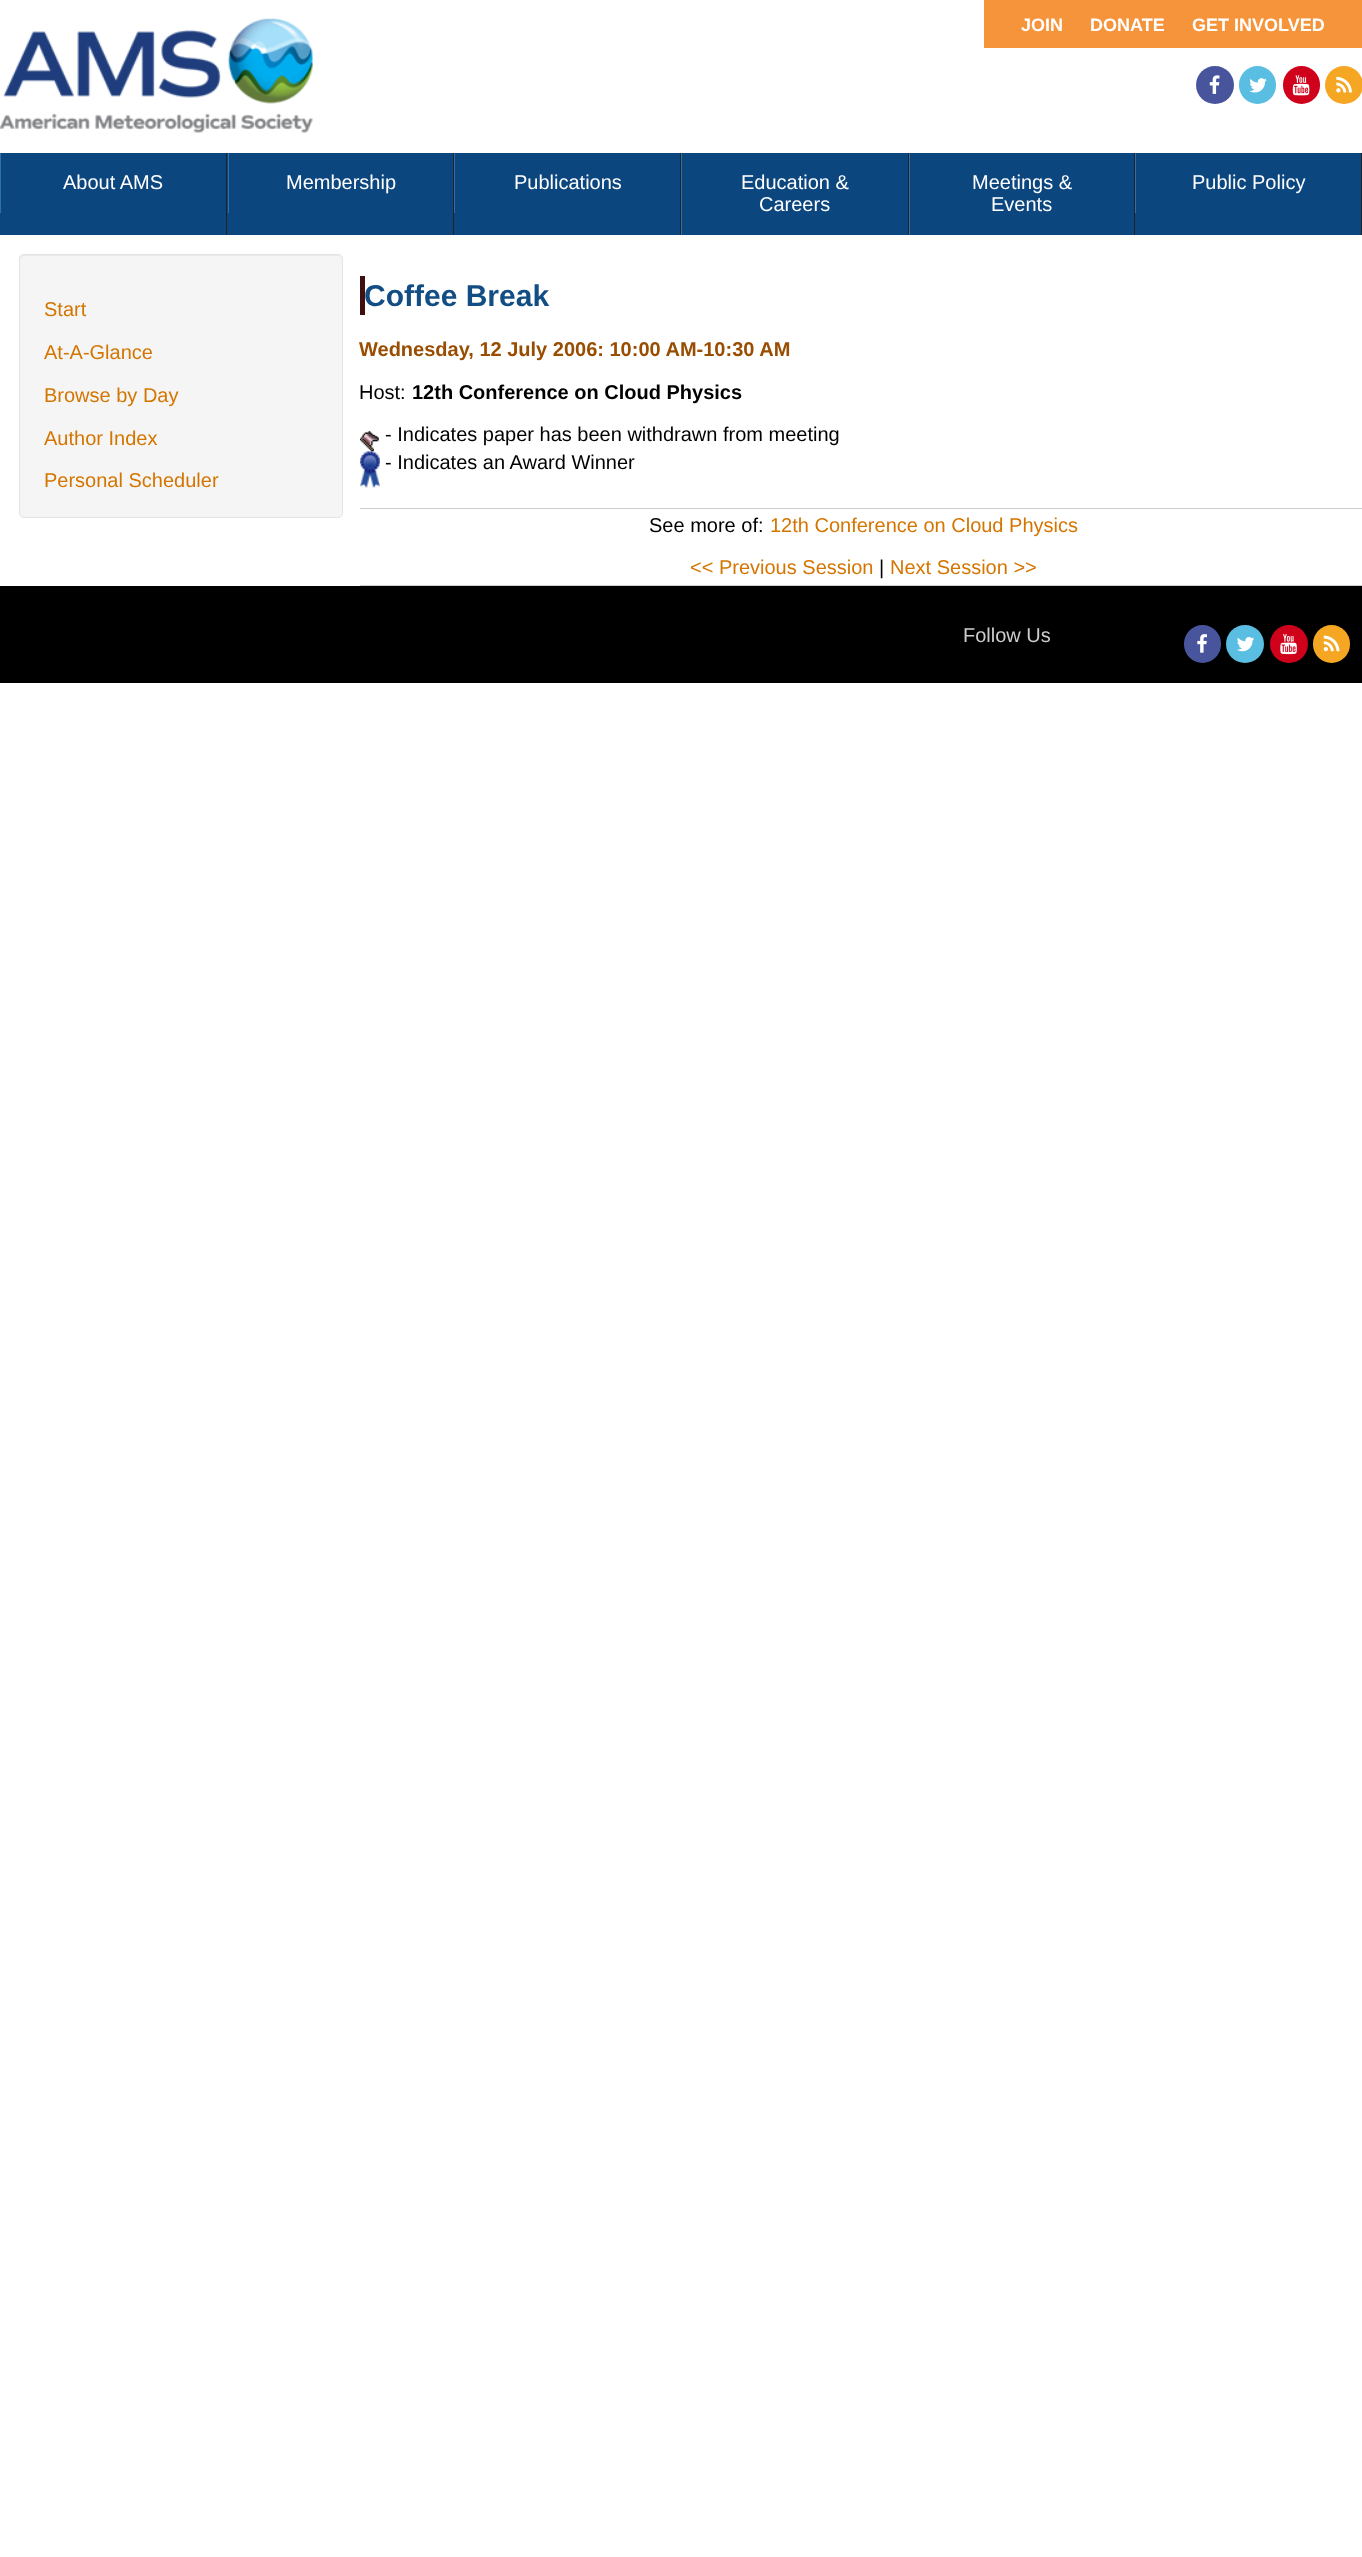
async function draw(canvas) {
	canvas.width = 1362;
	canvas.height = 2557;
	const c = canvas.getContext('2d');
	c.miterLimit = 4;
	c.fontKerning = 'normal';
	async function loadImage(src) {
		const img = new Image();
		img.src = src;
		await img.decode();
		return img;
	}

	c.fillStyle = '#fff';
	c.fillRect(0, 0, 1362, 2557);
	c.drawImage(await loadImage('img1.png'), 0, 18, 313, 115);
	c.fillStyle = '#f5943a';
	c.fillRect(984, 0, 378, 48);
	c.font = 'bold 18px Liberation Sans';
	c.fillStyle = '#fff';
	for (const [text, x, y] of [
		['JOIN', 1021, 31],
		['DONATE', 1090, 31],
		['GET INVOLVED', 1192, 31],
	]) {
		c.fillText(text, x, y);
	}
	c.fillStyle = '#48559d';
	c.beginPath();
	c.arc(1215, 85, 19, 0, 2 * Math.PI);
	c.fill();
	c.drawImage(await loadImage('img2.png'), 1209, 75, 11, 19);
	c.fillStyle = '#59bee1';
	c.beginPath();
	c.roundRect(1239, 66, 37, 38, 18.5);
	c.fill();
	c.drawImage(await loadImage('img3.png'), 1249, 78, 18, 15);
	c.fillStyle = '#d0021b';
	c.beginPath();
	c.roundRect(1283, 66, 37, 38, 18.5);
	c.fill();
	c.drawImage(await loadImage('img4.png'), 1292, 75, 18, 21);
	c.fillStyle = '#f5a623';
	c.beginPath();
	c.arc(1344, 85, 19, 0, 2 * Math.PI);
	c.fill();
	c.drawImage(await loadImage('img5.png'), 1336, 76, 16, 17);
	for (const [x, y, w, h, color] of [
		[0, 153, 1361, 82, '#0b467f'],
		[226, 153, 1, 82, '#222'],
		[0, 153, 1, 60, '#2c70af'],
	]) {
		c.fillStyle = color;
		c.fillRect(x, y, w, h);
	}
	c.font = '20px Liberation Sans';
	c.fillStyle = '#fff';
	c.fillText('About AMS', 63, 189);
	c.fillStyle = '#222';
	c.fillRect(453, 153, 1, 82);
	c.fillStyle = '#2c70af';
	c.fillRect(228, 153, 1, 60);
	c.fillStyle = '#fff';
	c.fillText('Membership', 286, 189);
	c.fillStyle = '#222';
	c.fillRect(680, 153, 1, 82);
	c.fillStyle = '#2c70af';
	c.fillRect(454, 153, 1, 60);
	c.fillStyle = '#fff';
	c.fillText('Publications', 514, 189);
	c.fillStyle = '#222';
	c.fillRect(908, 153, 1, 82);
	c.fillStyle = '#2c70af';
	c.fillRect(681, 153, 1, 82);
	c.fillStyle = '#fff';
	c.fillText('Education &', 741, 189);
	c.fillText('Careers', 759, 211);
	c.fillStyle = '#222';
	c.fillRect(1134, 153, 1, 82);
	c.fillStyle = '#2c70af';
	c.fillRect(909, 153, 1, 82);
	c.fillStyle = '#fff';
	c.fillText('Meetings &', 972, 189);
	c.fillText('Events', 991, 211);
	c.fillStyle = '#222';
	c.fillRect(1361, 153, 1, 82);
	c.fillStyle = '#2c70af';
	c.fillRect(1135, 153, 1, 60);
	c.fillStyle = '#fff';
	c.fillText('Public Policy', 1192, 189);
	c.fillStyle = '#f5f5f5';
	c.beginPath();
	c.roundRect(19, 254, 324, 264, 5);
	c.fill();
	c.fillStyle = '#e9e9e9';
	c.beginPath();
	c.moveTo(24, 256);
	c.lineTo(338, 256);
	c.bezierCurveTo(340, 256, 341, 258, 341, 260);
	c.lineTo(341, 259);
	c.bezierCurveTo(341, 257, 339, 255, 337, 255);
	c.lineTo(24, 255);
	c.bezierCurveTo(22, 255, 20, 257, 20, 259);
	c.lineTo(20, 260);
	c.bezierCurveTo(20, 258, 22, 256, 24, 256);
	c.closePath();
	c.fill();
	c.beginPath();
	c.roundRect(19.5, 254.5, 323, 263, 4.5);
	c.strokeStyle = '#e3e3e3';
	c.stroke();
	c.fillStyle = '#d47500';
	for (const [text, x, y] of [
		['Start', 44, 316],
		['At-A-Glance', 44, 359],
		['Browse by Day', 44, 402],
		['Author Index', 44, 445],
		['Personal Scheduler', 44, 487],
	]) {
		c.fillText(text, x, y);
	}
	c.fillStyle = '#401010';
	c.fillRect(360, 276, 5, 39);
	c.font = 'bold 30px Liberation Sans';
	c.fillStyle = '#124d84';
	c.fillText('Coffee Break', 364, 306);
	c.font = 'bold 20px Liberation Sans';
	c.fillStyle = '#994d00';
	c.fillText('Wednesday, 12 July 2006: 10:00 AM-10:30 AM', 359, 356);
	c.font = '20px Liberation Sans';
	c.fillStyle = '#000';
	c.fillText('Host:', 359, 399);
	c.font = 'bold 20px Liberation Sans';
	c.fillText('12th Conference on Cloud Physics', 412, 399);
	c.drawImage(await loadImage('img6.png'), 360, 431, 19, 21);
	c.font = '20px Liberation Sans';
	c.fillText('- Indicates paper has been withdrawn from meeting', 385, 441);
	c.drawImage(await loadImage('img7.png'), 360, 451, 20, 37);
	c.fillText('- Indicates an Award Winner', 385, 469);
	c.fillStyle = '#ccc';
	c.fillRect(360, 508, 1002, 1);
	c.fillStyle = '#000';
	c.fillText('See more of:', 649, 532);
	c.fillStyle = '#d47500';
	c.fillText('12th Conference on Cloud Physics', 770, 532);
	c.fillStyle = '#ccc';
	c.fillRect(360, 585, 1002, 1);
	c.fillStyle = '#d47500';
	c.fillText('<< Previous Session', 690, 574);
	c.fillStyle = '#000';
	c.fillText('|', 879, 574);
	c.fillStyle = '#d47500';
	c.fillText('Next Session >>', 890, 574);
	c.fillStyle = '#000';
	c.fillRect(0, 586, 1362, 97);
	c.fillStyle = '#ccc';
	c.fillText('Follow Us', 963, 642);
	c.fillStyle = '#48559d';
	c.beginPath();
	c.roundRect(1184, 625, 37, 38, 18.5);
	c.fill();
	c.drawImage(await loadImage('img8.png'), 1197, 634, 10, 19);
	c.fillStyle = '#59bee1';
	c.beginPath();
	c.arc(1245, 644, 19, 0, 2 * Math.PI);
	c.fill();
	c.drawImage(await loadImage('img9.png'), 1237, 637, 18, 15);
	c.fillStyle = '#d0021b';
	c.beginPath();
	c.arc(1289, 644, 19, 0, 2 * Math.PI);
	c.fill();
	c.drawImage(await loadImage('img10.png'), 1280, 634, 17, 21);
	c.fillStyle = '#f5a623';
	c.beginPath();
	c.roundRect(1313, 625, 37, 38, 18.5);
	c.fill();
	c.drawImage(await loadImage('img11.png'), 1323, 635, 17, 17);
}

draw(document.querySelector('canvas'));
